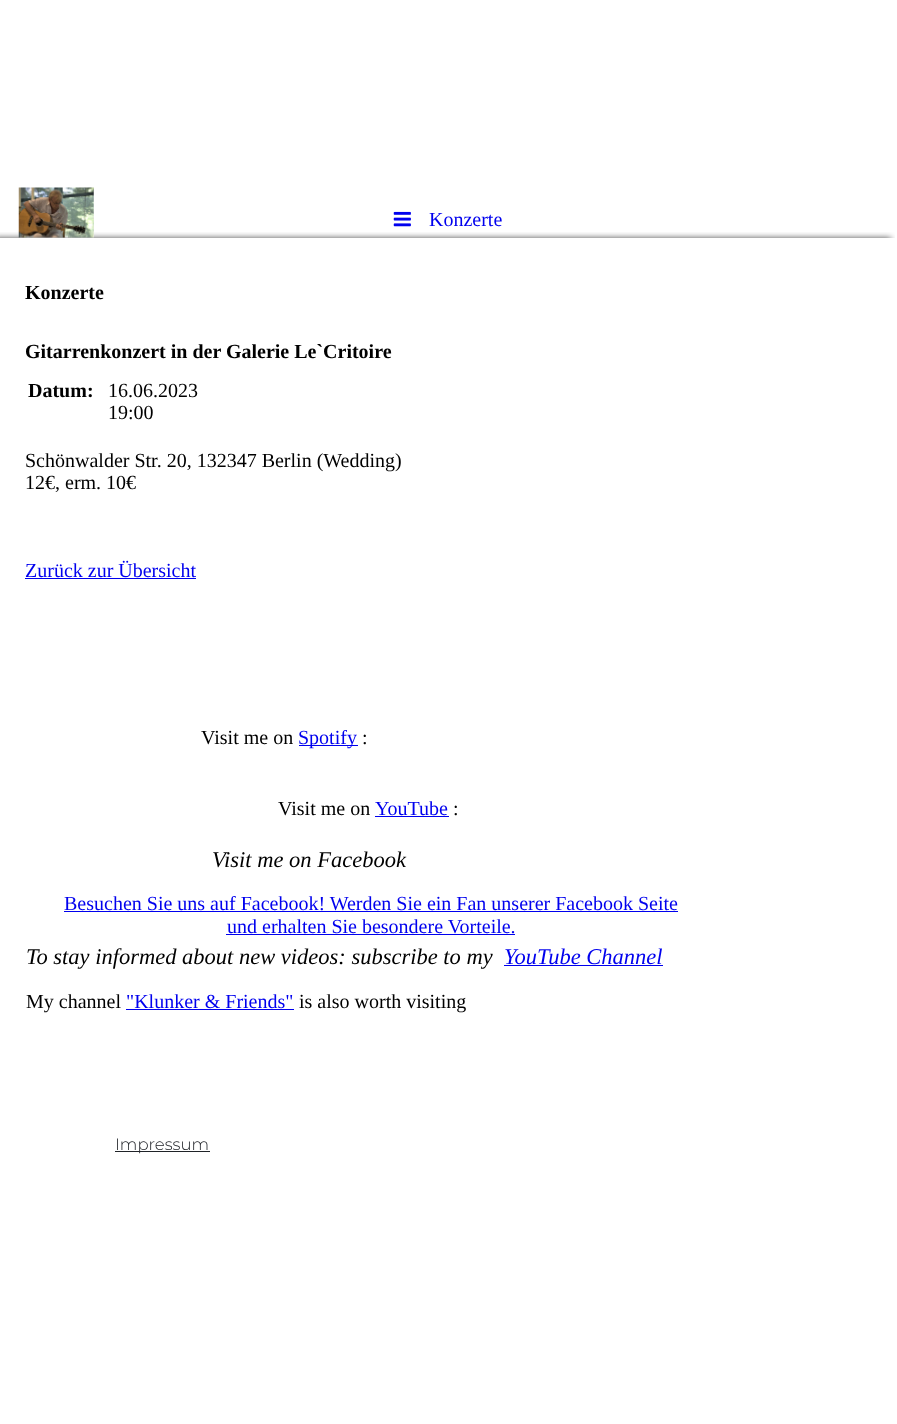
async function draw(canvas) {
	canvas.width = 897;
	canvas.height = 1424;
	const c = canvas.getContext('2d');
	c.miterLimit = 4;
	c.fontKerning = 'normal';
	async function loadImage(src) {
		const img = new Image();
		img.src = src;
		await img.decode();
		return img;
	}

	c.fillStyle = '#fff';
	c.fillRect(0, 0, 897, 1424);
	c.save();
	c.beginPath();
	c.rect(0, 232, 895, 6);
	c.clip();
	c.fillStyle = '#000000b3';
	c.filter = 'blur(3px)';
	c.beginPath();
	c.rect(-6, 238, 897, 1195);
	c.fill();
	c.filter = 'none';
	c.restore();
	c.drawImage(await loadImage('img1.png'), 18, 187, 76, 51);
	c.drawImage(await loadImage('img2.png'), 393, 211, 18, 16);
	c.font = '20px Liberation Serif';
	c.fillStyle = '#00e';
	c.fillText('Konzerte', 429, 226);
	c.font = 'bold 20px Liberation Serif';
	c.fillStyle = '#000';
	for (const [text, x, y] of [
		['Konzerte', 25, 299],
		['Gitarrenkonzert in der Galerie Le`Critoire', 25, 358],
		['Datum:', 28, 397],
	]) {
		c.fillText(text, x, y);
	}
	c.font = '20px Liberation Serif';
	for (const [text, x, y] of [
		['16.06.2023', 108, 397],
		['19:00', 108, 419],
		['Schönwalder Str. 20, 132347 Berlin (Wedding)', 25, 467],
		['12€, erm. 10€', 25, 489],
	]) {
		c.fillText(text, x, y);
	}
	c.fillStyle = '#00e';
	c.fillText('Zurück zur Übersicht', 25, 577);
	c.fillRect(25, 578, 171, 1);
	c.fillStyle = '#000';
	c.fillText('Visit me on', 201, 744);
	c.fillStyle = '#00e';
	c.fillRect(299, 745, 59, 1);
	c.fillText('Spotify', 298, 744);
	c.fillStyle = '#000';
	c.fillText(':', 362, 744);
	c.fillText('Visit me on', 278, 815);
	c.fillStyle = '#00e';
	c.fillText('YouTube', 375, 815);
	c.fillRect(375, 816, 74, 1);
	c.fillStyle = '#000';
	c.fillText(':', 453, 815);
	c.font = 'italic 22.5px Liberation Serif';
	c.fillText('Visit me on Facebook', 212, 867);
	c.font = '20px Liberation Serif';
	c.fillStyle = '#00e';
	c.fillText('Besuchen Sie uns auf Facebook! Werden Sie ein Fan unserer Facebook Seite', 64, 910);
	c.fillRect(64, 911, 614, 1);
	c.fillText('und erhalten Sie besondere Vorteile.', 227, 933);
	c.fillRect(226, 934, 289, 1);
	c.font = 'italic 22.5px Liberation Serif';
	c.fillStyle = '#000';
	c.fillText('To stay informed about new videos: subscribe to my', 26, 964);
	c.fillStyle = '#00e';
	c.fillText('YouTube Channel', 504, 964);
	c.fillRect(504, 965, 159, 1);
	c.font = '20px Liberation Serif';
	c.fillStyle = '#000';
	c.fillText('My channel', 26, 1008);
	c.fillStyle = '#00e';
	c.fillText('"Klunker & Friends"', 126, 1008);
	c.fillRect(126, 1009, 168, 1);
	c.fillStyle = '#000';
	c.fillText('is also worth visiting', 299, 1008);
	c.fillStyle = '#202328';
	c.fillRect(115, 1151, 95, 1);
	c.font = '300 16.5px Montserrat';
	c.fillText('Impressum', 115, 1150);
}

draw(document.querySelector('canvas'));
